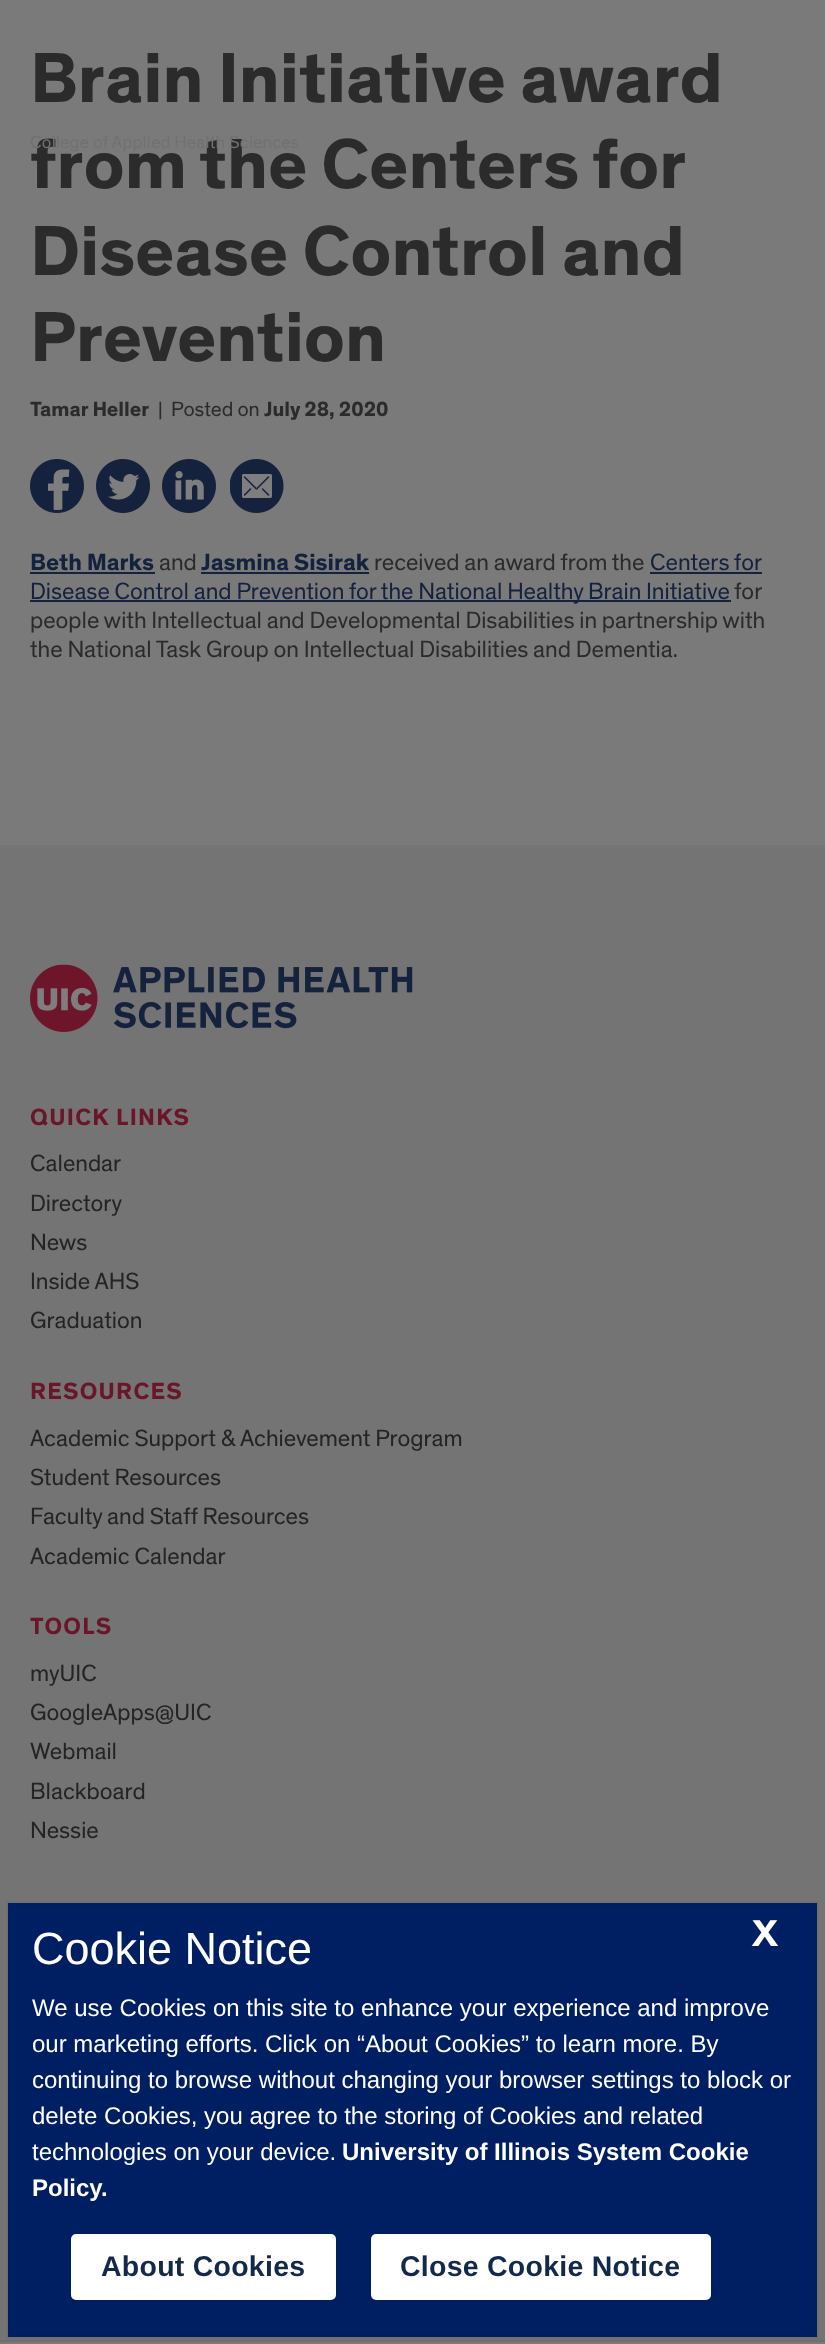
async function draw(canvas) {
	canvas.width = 825;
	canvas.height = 2344;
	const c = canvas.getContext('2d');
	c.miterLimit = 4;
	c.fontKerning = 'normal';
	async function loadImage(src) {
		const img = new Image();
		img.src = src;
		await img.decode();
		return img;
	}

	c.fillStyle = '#7a7a7a';
	c.fillRect(0, 0, 825, 2344);
	c.font = 'bold 72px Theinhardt';
	c.fillStyle = '#2b2b2b';
	c.fillText('Brain Initiative award', 30, 102);
	c.wordSpacing = '-0.5px';
	c.fillText('from the Centers for', 30, 188);
	c.wordSpacing = '0px';
	c.fillText('Disease Control and', 30, 275);
	c.fillText('Prevention', 30, 361);
	c.font = 'bold 21px Theinhardt';
	c.fillText('Tamar Heller', 30, 416);
	c.font = '21px Theinhardt';
	c.fillText('|', 158, 416);
	c.fillText('Posted on', 171, 416);
	c.font = 'bold 21px Theinhardt';
	c.fillText('July 28, 2020', 264, 416);
	c.drawImage(await loadImage('img1.png'), 30, 459, 54, 54);
	c.drawImage(await loadImage('img2.png'), 96, 459, 54, 54);
	c.drawImage(await loadImage('img3.png'), 162, 459, 54, 54);
	c.drawImage(await loadImage('img4.png'), 230, 459, 54, 54);
	c.font = 'bold 24px Theinhardt';
	c.fillStyle = '#15223d';
	c.fillText('Beth Marks', 30, 570);
	c.fillRect(30, 572, 125, 2);
	c.font = '24px Theinhardt';
	c.fillStyle = '#2b2b2b';
	c.fillText('and', 159, 570);
	c.font = 'bold 24px Theinhardt';
	c.fillStyle = '#15223d';
	c.fillText('Jasmina Sisirak', 201, 570);
	c.fillRect(201, 572, 168, 2);
	c.font = '24px Theinhardt';
	c.fillStyle = '#2b2b2b';
	c.fillText('received an award from the', 374, 570);
	c.fillStyle = '#15223d';
	c.fillText('Centers for', 650, 570);
	c.fillRect(650, 572, 112, 2);
	c.fillRect(30, 600, 701, 2);
	c.fillText('Disease Control and Prevention for the National Healthy Brain Initiative', 30, 599);
	c.fillStyle = '#2b2b2b';
	for (const [text, x, y] of [
		['for', 734, 599],
		['people with Intellectual and Developmental Disabilities in partnership with', 30, 628],
		['the National Task Group on Intellectual Disabilities and Dementia.', 30, 657],
	]) {
		c.fillText(text, x, y);
	}
	c.letterSpacing = '0.2px';
	c.font = '18px Theinhardt';
	c.fillStyle = '#717171';
	c.fillText('College of Applied Health Sciences', 30, 148);
	c.fillStyle = '#747474';
	c.fillRect(0, 845, 825, 1495);
	c.drawImage(await loadImage('img5.png'), 30, 964, 383, 68);
	c.letterSpacing = '1.25px';
	c.font = 'bold 24px Theinhardt';
	c.fillStyle = '#6b1529';
	c.fillText('QUICK LINKS', 30, 1125);
	c.letterSpacing = '0px';
	c.font = '24px Theinhardt';
	c.fillStyle = '#242424';
	for (const [text, x, y] of [
		['Calendar', 30, 1171],
		['Directory', 30, 1211],
		['News', 30, 1250],
		['Inside AHS', 30, 1289],
		['Graduation', 30, 1328],
	]) {
		c.fillText(text, x, y);
	}
	c.letterSpacing = '1.25px';
	c.font = 'bold 24px Theinhardt';
	c.fillStyle = '#6b1529';
	c.fillText('RESOURCES', 30, 1399);
	c.letterSpacing = '0px';
	c.font = '24px Theinhardt';
	c.fillStyle = '#242424';
	for (const [text, x, y] of [
		['Academic Support & Achievement Program', 30, 1446],
		['Student Resources', 30, 1485],
		['Faculty and Staff Resources', 30, 1524],
		['Academic Calendar', 30, 1564],
	]) {
		c.fillText(text, x, y);
	}
	c.letterSpacing = '1.25px';
	c.font = 'bold 24px Theinhardt';
	c.fillStyle = '#6b1529';
	c.fillText('TOOLS', 30, 1634);
	c.letterSpacing = '0px';
	c.font = '24px Theinhardt';
	c.fillStyle = '#242424';
	for (const [text, x, y] of [
		['myUIC', 30, 1681],
		['GoogleApps@UIC', 30, 1720],
		['Webmail', 30, 1759],
		['Blackboard', 30, 1799],
		['Nessie', 30, 1838],
	]) {
		c.fillText(text, x, y);
	}
	c.fillStyle = '#6e6e6e';
	c.fillRect(0, 2340, 825, 2);
	c.fillStyle = '#001e62';
	c.beginPath();
	c.rect(7, 1902, 811, 436);
	c.fill();
	c.strokeStyle = '#707070';
	c.lineWidth = 2;
	c.stroke();
	c.font = '45px Liberation Sans';
	c.fillStyle = '#fff';
	c.fillText('Cookie Notice', 32, 1964);
	c.font = 'bold 38px Theinhardt';
	c.fillText('X', 752, 1946);
	c.font = '24px Liberation Sans';
	for (const [text, x, y] of [
		['We use Cookies on this site to enhance your experience and improve', 32, 2016],
		['our marketing efforts. Click on “About Cookies” to learn more. By', 32, 2052],
		['continuing to browse without changing your browser settings to block or', 32, 2088],
		['delete Cookies, you agree to the storing of Cookies and related', 32, 2124],
		['technologies on your device.', 32, 2160],
	]) {
		c.fillText(text, x, y);
	}
	c.font = 'bold 24px Liberation Sans';
	c.fillText('University of Illinois System Cookie', 342, 2160);
	c.fillText('Policy.', 32, 2196);
	c.beginPath();
	c.roundRect(69.5, 2232.5, 268, 69, 6.5);
	c.fill();
	c.strokeStyle = '#001e62';
	c.lineWidth = 3;
	c.stroke();
	c.letterSpacing = '0.25px';
	c.font = 'bold 28.5px Liberation Sans';
	c.fillStyle = '#13294b';
	c.fillText('About Cookies', 101, 2276);
	c.fillStyle = '#fff';
	c.beginPath();
	c.roundRect(369.5, 2232.5, 343, 69, 6.5);
	c.fill();
	c.stroke();
	c.fillStyle = '#13294b';
	c.fillText('Close Cookie Notice', 400, 2276);
}

draw(document.querySelector('canvas'));
